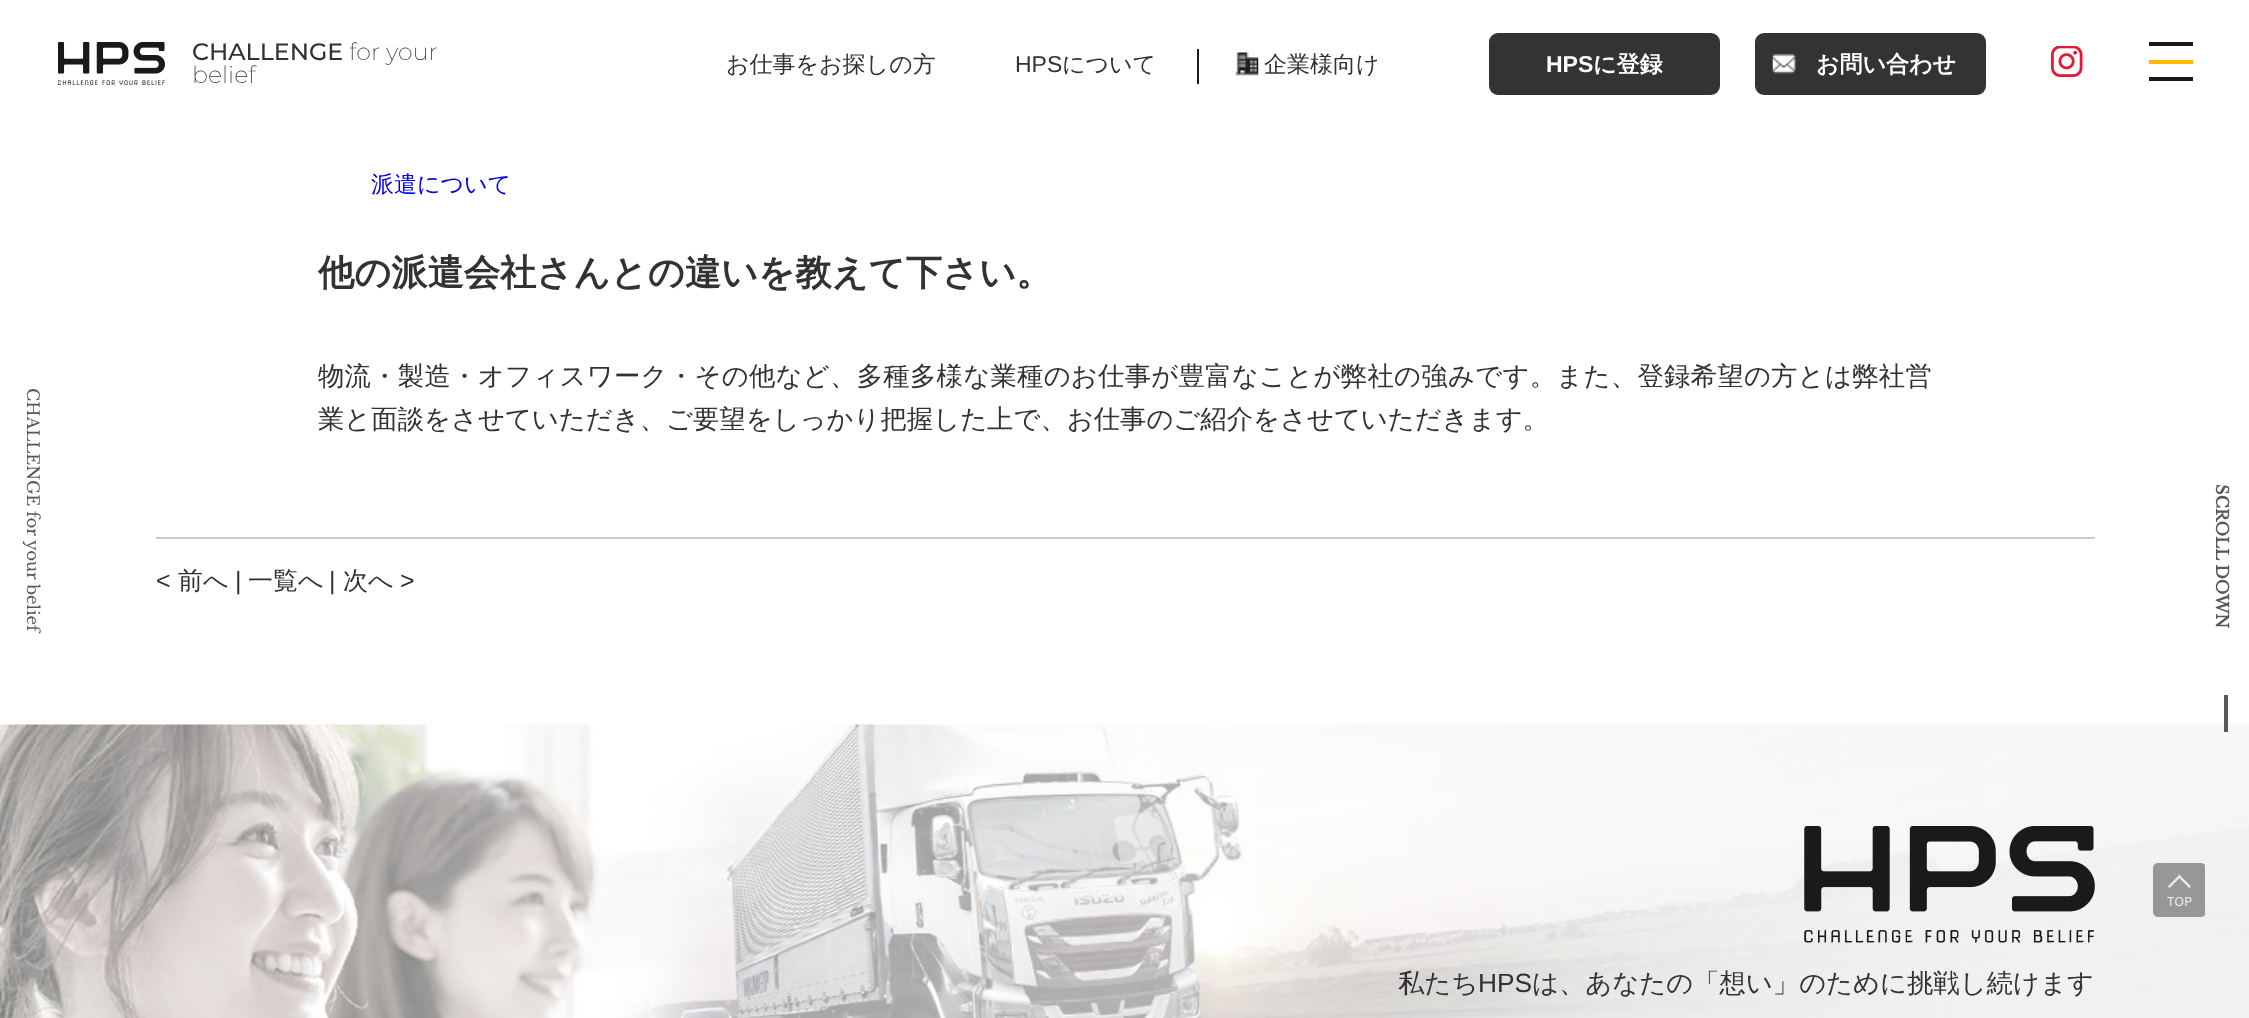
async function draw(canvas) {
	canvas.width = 2249;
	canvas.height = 1018;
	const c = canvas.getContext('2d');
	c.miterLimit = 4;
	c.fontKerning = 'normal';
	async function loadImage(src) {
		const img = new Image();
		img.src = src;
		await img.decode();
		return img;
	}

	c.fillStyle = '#fff';
	c.fillRect(0, 0, 2249, 1018);
	c.drawImage(await loadImage('img1.png'), 58, 42, 107, 44);
	c.font = '500 23.75px Montserrat';
	c.fillStyle = '#323232';
	c.fillText('CHALLENGE', 192, 60);
	c.font = '200 23.75px Montserrat';
	c.fillText('for your', 349, 60);
	c.fillText('belief', 192, 83);
	c.font = '500 23px WenQuanYi Zen Hei';
	c.fillText('お仕事をお探しの方', 726, 72);
	c.font = '23px Liberation Sans';
	c.fillText('HPS', 1015, 72);
	c.font = '500 23px WenQuanYi Zen Hei';
	c.fillText('について', 1062, 72);
	c.fillStyle = '#1c1e1b';
	c.fillRect(1197, 49, 2, 35);
	c.drawImage(await loadImage('img2.png'), 1235, 52, 24, 24);
	c.fillStyle = '#323232';
	c.fillText('企業様向け', 1264, 72);
	c.fillStyle = '#333';
	c.beginPath();
	c.roundRect(1490, 34, 229, 60, 8);
	c.fill();
	c.strokeStyle = '#333';
	c.lineWidth = 2;
	c.stroke();
	c.font = 'bold 23px Liberation Sans';
	c.fillStyle = '#fff';
	c.fillText('HPS', 1546, 72);
	c.font = 'bold 23px WenQuanYi Zen Hei';
	c.fillText('に登録', 1593, 72);
	c.fillStyle = '#333';
	c.beginPath();
	c.roundRect(1756, 34, 229, 60, 8);
	c.fill();
	c.stroke();
	c.drawImage(await loadImage('img3.png'), 1772, 54, 24, 20);
	c.fillStyle = '#fff';
	c.fillText('お問い合わせ', 1816, 72);
	c.drawImage(await loadImage('img4.png'), 2051, 46, 32, 31);
	for (const [x, y, w, h, color] of [
		[2149, 42, 44, 4, '#1a1a1a'],
		[2149, 60, 44, 4, '#ffb900'],
		[2149, 77, 44, 4, '#1a1a1a'],
	]) {
		c.fillStyle = color;
		c.fillRect(x, y, w, h);
	}
	c.font = '16.5px Libre Baskerville';
	c.fillStyle = '#595757';
	c.save();
	c.translate(27, 388);
	c.rotate(90 * Math.PI / 180);
	c.fillText('CHALLENGE for your belief', 0, 0);
	c.restore();
	c.font = '500 23px WenQuanYi Zen Hei';
	c.fillStyle = '#00e';
	c.fillText('派遣について', 371, 192);
	c.font = 'bold 36.25px WenQuanYi Zen Hei';
	c.fillStyle = '#323232';
	c.fillText('他の派遣会社さんとの違いを教えて下さい。', 318, 285);
	c.letterSpacing = '0.28px';
	c.font = '500 26.35px WenQuanYi Zen Hei';
	c.fillText('物流・製造・オフィスワーク・その他など、多種多様な業種のお仕事が豊富なことが弊社の強みです。また、登録希望の方とは弊社営', 318, 385);
	c.letterSpacing = '0px';
	c.fillText('業と面談をさせていただき、ご要望をしっかり把握した上で、お仕事のご紹介をさせていただきます。', 318, 428);
	c.fillStyle = '#cacaca';
	c.fillRect(156, 537, 1939, 2);
	c.font = '25px Liberation Sans';
	c.fillStyle = '#323232';
	c.fillText('<', 156, 589);
	c.font = '500 25px WenQuanYi Zen Hei';
	c.fillText('前へ', 178, 589);
	c.font = '25px Liberation Sans';
	c.fillText('|', 235, 589);
	c.font = '500 25px WenQuanYi Zen Hei';
	c.fillText('一覧へ', 248, 589);
	c.font = '25px Liberation Sans';
	c.fillText('|', 329, 589);
	c.font = '500 25px WenQuanYi Zen Hei';
	c.fillText('次へ', 343, 589);
	c.font = '25px Liberation Sans';
	c.fillText('>', 400, 589);
	c.font = 'bold 16.5px Libre Baskerville';
	c.fillStyle = '#595757';
	c.save();
	c.translate(2216, 484);
	c.rotate(90 * Math.PI / 180);
	c.fillText('SCROLL DOWN', 0, 0);
	c.restore();
	c.drawImage(await loadImage('img6.png'), 0, 724, 2249, 294);
	c.fillRect(2224, 695, 4, 37);
	c.drawImage(await loadImage('img5.png'), 2153, 863, 52, 54);
	c.drawImage(await loadImage('img7.png'), 1804, 826, 291, 117);
	c.font = '500 26.35px WenQuanYi Zen Hei';
	c.fillStyle = '#323232';
	c.fillText('私たち', 1398, 992);
	c.font = '26.35px Liberation Sans';
	c.fillText('HPS', 1478, 992);
	c.font = '500 26.35px WenQuanYi Zen Hei';
	c.fillText('は、あなたの「想い」のために挑戦し続けます', 1532, 992);
}

draw(document.querySelector('canvas'));
